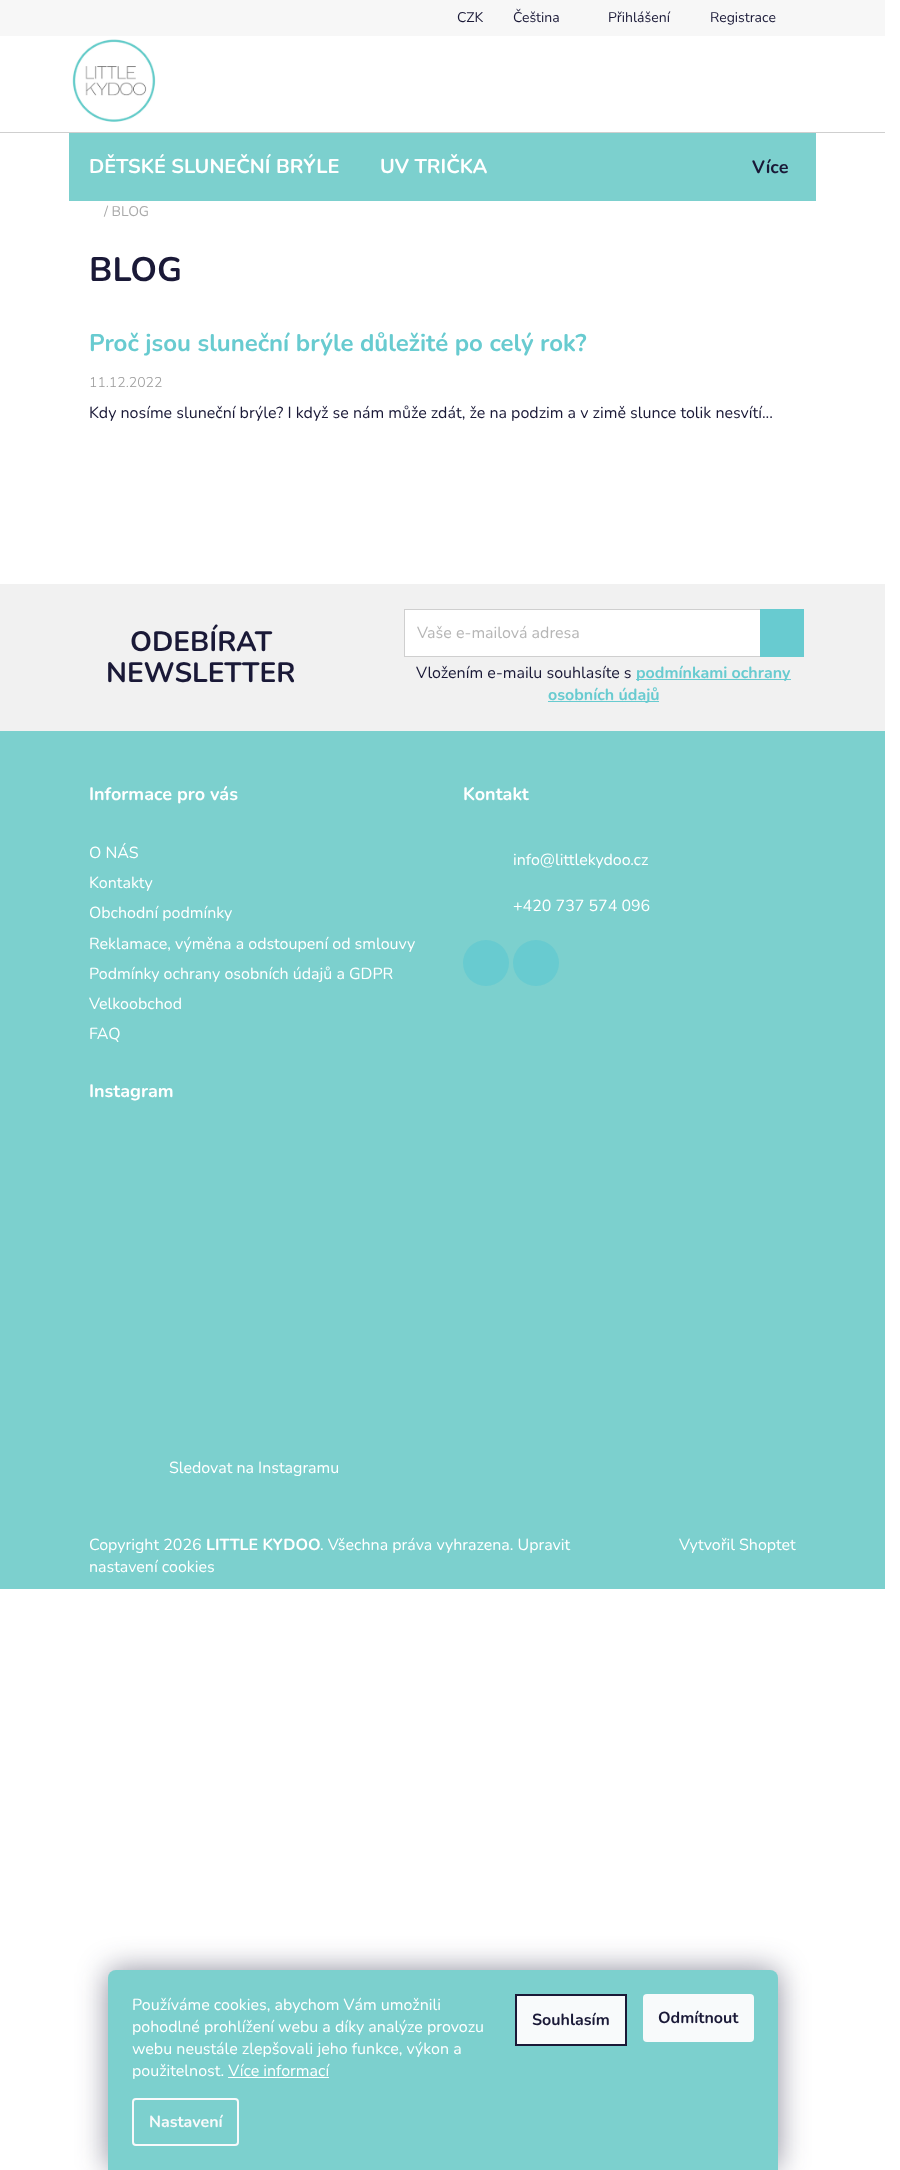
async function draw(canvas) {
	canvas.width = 900;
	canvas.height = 2170;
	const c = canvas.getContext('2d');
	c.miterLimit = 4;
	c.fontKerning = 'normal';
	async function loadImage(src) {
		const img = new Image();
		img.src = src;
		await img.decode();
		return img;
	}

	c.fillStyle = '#fff';
	c.fillRect(0, 0, 900, 2170);
	c.fillStyle = '#f7f7f7';
	c.fillRect(0, 0, 885, 36);
	c.font = '14px Nunito';
	c.fillStyle = '#1a1937';
	for (const [text, x, y] of [
		['CZK', 457, 22],
		['Čeština', 513, 22],
		['Přihlášení', 608, 22],
		['Registrace', 710, 22],
	]) {
		c.fillText(text, x, y);
	}
	c.drawImage(await loadImage('img1.png'), 72, 39, 84, 83);
	c.fillStyle = '#cfcfcf';
	c.fillRect(0, 132, 885, 1);
	c.fillStyle = '#7cd0ce';
	c.fillRect(69, 133, 747, 68);
	c.font = 'bold 20px Nunito';
	c.fillStyle = '#fff';
	c.fillText('DĚTSKÉ SLUNEČNÍ BRÝLE', 89, 173);
	c.fillText('UV TRIČKA', 380, 173);
	c.font = 'bold 18px Nunito';
	c.fillStyle = '#1a1937';
	c.fillText('Více', 752, 173);
	c.font = '14px Nunito';
	c.fillStyle = '#aaa';
	c.fillText('/ BLOG', 104, 216);
	c.font = 'bold 34px Nunito';
	c.fillStyle = '#1a1937';
	c.fillText('BLOG', 89, 281);
	c.font = 'bold 24px Nunito';
	c.fillStyle = '#68cbd0';
	c.fillText('Proč jsou sluneční brýle důležité po celý rok?', 89, 351);
	c.font = '300 14px Nunito';
	c.fillStyle = '#999';
	c.fillText('11.12.2022', 89, 387);
	c.font = '16px Nunito';
	c.fillStyle = '#1a1937';
	c.fillText('Kdy nosíme sluneční brýle? I když se nám může zdát, že na podzim a v zimě slunce tolik nesvítí...', 89, 418);
	c.fillStyle = '#f1f1f1';
	c.fillRect(0, 584, 885, 147);
	c.font = 'bold 28px Nunito';
	c.fillStyle = '#1a1937';
	c.fillText('ODEBÍRAT', 130, 651);
	c.fillText('NEWSLETTER', 106, 682);
	c.fillStyle = '#fff';
	c.fillRect(405, 610, 355, 46);
	c.strokeStyle = '#cfcfcf';
	c.strokeRect(404.5, 609.5, 399, 47);
	c.font = '16px Nunito';
	c.fillStyle = '#b6b6b6';
	c.fillText('Vaše e-mailová adresa', 417, 638);
	c.fillStyle = '#68cbd0';
	c.fillRect(760, 609, 44, 48);
	c.fillStyle = '#1a1937';
	c.fillText('Vložením e-mailu souhlasíte s', 416, 678);
	c.fillStyle = '#68cbd0';
	c.fillRect(636, 679, 155, 1);
	c.font = 'bold 16px Nunito';
	c.fillText('podmínkami ochrany', 636, 678);
	c.fillRect(548, 701, 111, 1);
	c.fillText('osobních údajů', 548, 700);
	c.fillStyle = '#7cd0ce';
	c.fillRect(0, 731, 885, 858);
	c.font = 'bold 18px Nunito';
	c.fillStyle = '#fff';
	c.fillText('Informace pro vás', 89, 800);
	c.font = '16px Nunito';
	for (const [text, x, y] of [
		['O NÁS', 89, 858],
		['Kontakty', 89, 888],
		['Obchodní podmínky', 89, 918],
		['Reklamace, výměna a odstoupení od smlouvy', 89, 949],
		['Podmínky ochrany osobních údajů a GDPR', 89, 979],
		['Velkoobchod', 89, 1009],
		['FAQ', 89, 1039],
	]) {
		c.fillText(text, x, y);
	}
	c.font = 'bold 18px Nunito';
	c.fillText('Kontakt', 463, 800);
	c.font = '16px Nunito';
	c.fillText('info@littlekydoo.cz', 513, 865);
	c.fillText('+420 737 574 096', 513, 911);
	c.fillStyle = '#68cbd0';
	c.beginPath();
	c.arc(486, 963, 23, 0, 2 * Math.PI);
	c.fill();
	c.beginPath();
	c.arc(536, 963, 23, 0, 2 * Math.PI);
	c.fill();
	c.font = 'bold 18px Nunito';
	c.fillStyle = '#fff';
	c.fillText('Instagram', 89, 1097);
	c.font = '16px Nunito';
	c.fillText('Sledovat na Instagramu', 169, 1473);
	c.fillText('Copyright 2026', 89, 1550);
	c.font = 'bold 16px Nunito';
	c.fillText('LITTLE KYDOO', 206, 1550);
	c.font = '16px Nunito';
	for (const [text, x, y] of [
		['. Všechna práva vyhrazena. Upravit', 320, 1550],
		['Vytvořil Shoptet', 679, 1550],
		['nastavení cookies', 89, 1572],
	]) {
		c.fillText(text, x, y);
	}
	c.fillStyle = '#1b193980';
	c.filter = 'blur(15px)';
	c.beginPath();
	c.roundRect(108, 1970, 670, 200, 8);
	c.fill();
	c.filter = 'none';
	c.fillStyle = '#7cd0ce';
	c.beginPath();
	c.roundRect(108, 1970, 670, 200, [8, 8, 0, 0]);
	c.fill();
	c.fillStyle = '#fff';
	for (const [text, x, y] of [
		['Používáme cookies, abychom Vám umožnili', 132, 2010],
		['pohodlné prohlížení webu a díky analýze provozu', 132, 2032],
		['webu neustále zlepšovali jeho funkce, výkon a', 132, 2054],
		['použitelnost. Více informací', 132, 2076],
	]) {
		c.fillText(text, x, y);
	}
	c.fillRect(228, 2077, 101, 1);
	c.beginPath();
	c.roundRect(133, 2099, 105, 46, 3);
	c.strokeStyle = '#f8fafb';
	c.lineWidth = 2;
	c.stroke();
	c.font = 'bold 16px Nunito';
	c.fillStyle = '#f8fafb';
	c.fillText('Nastavení', 149, 2127);
	c.beginPath();
	c.rect(516, 1995, 110, 50);
	c.fill();
	c.strokeStyle = '#1a1937';
	c.stroke();
	c.fillStyle = '#1a1937';
	c.fillText('Souhlasím', 532, 2025);
	c.fillStyle = '#f8fafb';
	c.beginPath();
	c.roundRect(643, 1994, 111, 48, 4);
	c.fill();
	c.fillStyle = '#1a1937';
	c.fillText('Odmítnout', 658, 2023);
}

draw(document.querySelector('canvas'));
